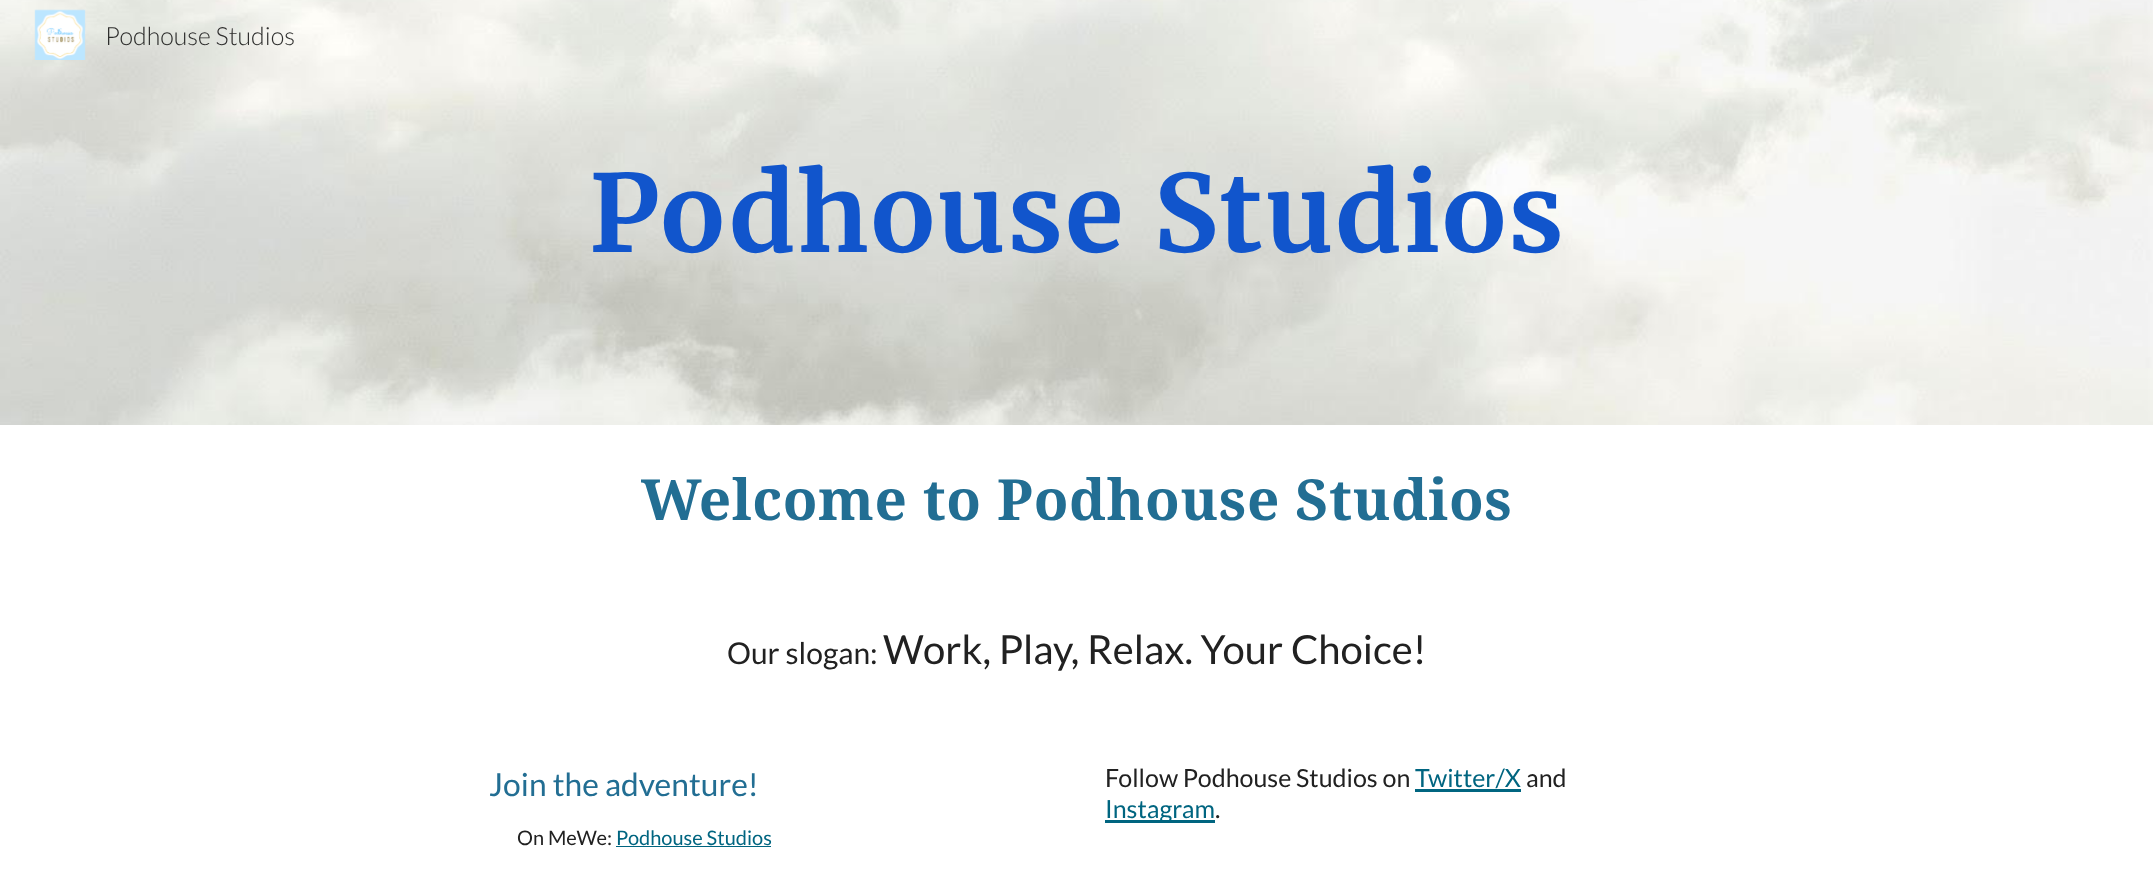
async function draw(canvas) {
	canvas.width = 2153;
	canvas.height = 874;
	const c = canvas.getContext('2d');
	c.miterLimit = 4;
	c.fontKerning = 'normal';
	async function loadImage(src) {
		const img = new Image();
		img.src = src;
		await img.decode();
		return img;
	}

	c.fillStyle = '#fff';
	c.fillRect(0, 0, 2153, 874);
	c.drawImage(await loadImage('img2.png'), 0, 0, 2153, 425);
	c.drawImage(await loadImage('img1.png'), 34, 9, 52, 51);
	c.font = '300 25px Lato';
	c.fillStyle = '#2e2e2d';
	c.fillText('Podhouse Studios', 105, 45);
	c.letterSpacing = '2.5px';
	c.font = 'bold 106.75px Merriweather';
	c.fillStyle = '#15c';
	c.fillText('Podhouse Studios', 589, 252);
	c.letterSpacing = '0.6px';
	c.font = 'bold 56.7px Droid Serif';
	c.fillStyle = '#226e93';
	c.fillText('Welcome to Podhouse Studios', 641, 520);
	c.letterSpacing = '0px';
	c.font = '30px Lato';
	c.fillStyle = '#212121';
	c.fillText('Our slogan:', 727, 664);
	c.font = '40px Lato';
	c.fillText('Work, Play, Relax. Your Choice!', 883, 664);
	c.font = '31.75px Lato';
	c.fillStyle = '#226e93';
	c.fillText('Join the adventure!', 489, 796);
	c.font = '20px Lato';
	c.fillStyle = '#212121';
	c.fillText('On MeWe:', 517, 845);
	c.fillStyle = '#006580';
	c.fillText('Podhouse Studios', 616, 845);
	c.fillRect(616, 846, 155, 1);
	c.font = '25px Lato';
	c.fillStyle = '#212121';
	c.fillText('Follow Podhouse Studios on', 1105, 787);
	c.fillStyle = '#006580';
	c.fillText('Twitter/X', 1415, 787);
	c.fillRect(1415, 789, 106, 3);
	c.fillStyle = '#212121';
	c.fillText('and', 1526, 787);
	c.fillStyle = '#006580';
	c.fillRect(1105, 820, 110, 3);
	c.fillText('Instagram', 1105, 818);
	c.fillStyle = '#212121';
	c.fillText('.', 1215, 818);
}

draw(document.querySelector('canvas'));
